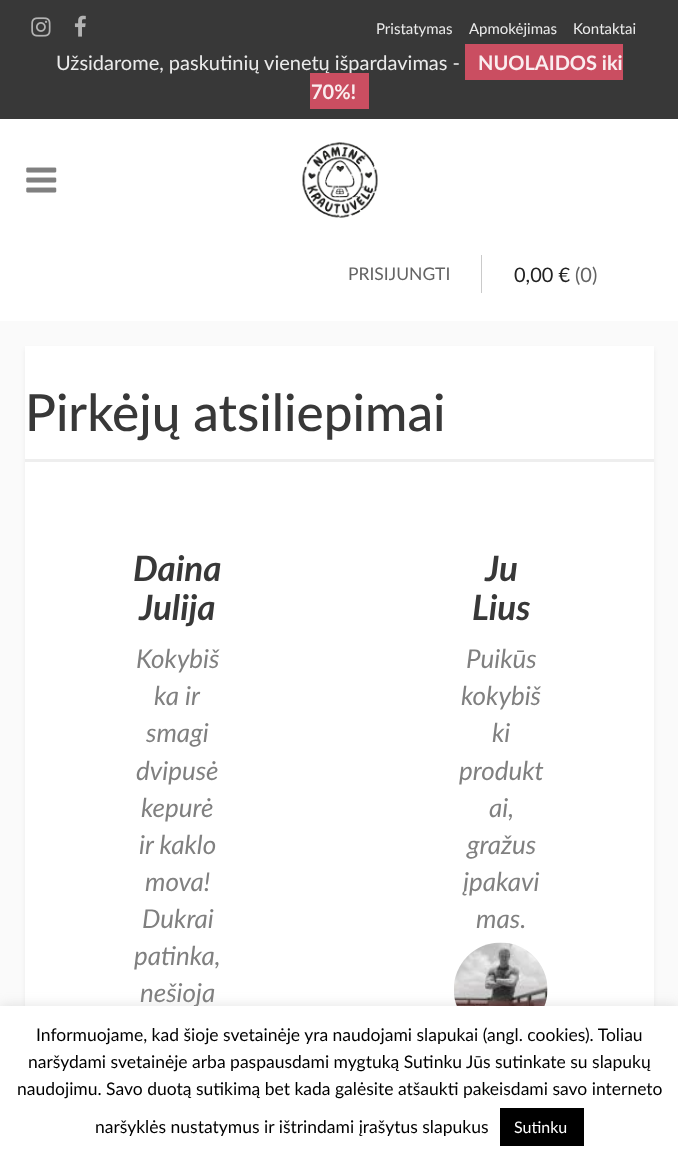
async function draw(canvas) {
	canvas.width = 678;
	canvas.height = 1161;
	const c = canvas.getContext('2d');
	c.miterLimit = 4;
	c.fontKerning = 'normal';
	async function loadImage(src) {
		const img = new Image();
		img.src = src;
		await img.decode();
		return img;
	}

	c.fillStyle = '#fafafa';
	c.fillRect(0, 0, 678, 1161);
	c.fillStyle = '#383838';
	c.fillRect(0, 0, 678, 119);
	c.drawImage(await loadImage('img1.png'), 31, 17, 20, 20);
	c.drawImage(await loadImage('img2.png'), 74, 15, 12, 22);
	c.font = '15px Lato';
	c.fillStyle = '#ebebeb';
	for (const [text, x, y] of [
		['Pristatymas', 376, 34],
		['Apmokėjimas', 469, 34],
		['Kontaktai', 573, 34],
	]) {
		c.fillText(text, x, y);
	}
	c.font = '20px Lato';
	c.fillText('Užsidarome, paskutinių vienetų išpardavimas -', 56, 70);
	c.fillStyle = '#ca4e61';
	c.fillRect(465, 44, 158, 36);
	c.font = 'bold 20px Lato';
	c.fillStyle = '#faedef';
	c.fillText('NUOLAIDOS iki', 478, 70);
	c.fillStyle = '#ca4e61';
	c.fillRect(310, 73, 59, 36);
	c.fillStyle = '#faedef';
	c.fillText('70%!', 311, 99);
	c.fillStyle = '#fff';
	c.fillRect(0, 119, 678, 202);
	c.drawImage(await loadImage('img3.png'), 26, 167, 31, 26);
	c.drawImage(await loadImage('img4.png'), 302, 142, 76, 76);
	c.fillStyle = '#cacaca';
	c.fillRect(481, 255, 1, 38);
	c.font = '17.5px Lato';
	c.fillStyle = '#646464';
	c.fillText('PRISIJUNGTI', 348, 280);
	c.font = '20px Lato';
	c.fillStyle = '#222';
	c.fillText('0,00 €', 514, 282);
	c.fillStyle = '#646464';
	c.fillText('(0)', 575, 282);
	c.fillStyle = '#0000000f';
	c.filter = 'blur(2.5px)';
	c.beginPath();
	c.rect(25, 349, 629, 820);
	c.fill();
	c.filter = 'none';
	c.fillStyle = '#fff';
	c.fillRect(25, 346, 629, 660);
	c.fillStyle = '#eee';
	c.fillRect(25, 459, 629, 3);
	c.font = '500 51.25px Lato';
	c.fillStyle = '#383838';
	c.fillText('Pirkėjų atsiliepimai', 25, 431);
	c.font = 'italic bold 35px Lato';
	c.fillText('Daina', 133, 581);
	c.fillText('Julija', 139, 620);
	c.font = 'italic 26px Lato';
	c.fillStyle = '#808080';
	for (const [text, x, y] of [
		['Kokybiš', 136, 668],
		['ka ir', 154, 705],
		['smagi', 146, 742],
		['dvipusė', 136, 780],
		['kepurė', 141, 817],
		['ir kaklo', 139, 854],
		['mova!', 145, 891],
		['Dukrai', 142, 928],
		['patinka,', 134, 965],
		['nešioja', 140, 1002],
	]) {
		c.fillText(text, x, y);
	}
	c.font = 'italic bold 35px Lato';
	c.fillStyle = '#383838';
	c.fillText('Ju', 485, 581);
	c.fillText('Lius', 472, 620);
	c.font = 'italic 26px Lato';
	c.fillStyle = '#808080';
	for (const [text, x, y] of [
		['Puikūs', 466, 668],
		['kokybiš', 461, 705],
		['ki', 492, 742],
		['produkt', 459, 780],
		['ai,', 489, 817],
		['gražus', 467, 854],
		['įpakavi', 463, 891],
		['mas.', 476, 928],
	]) {
		c.fillText(text, x, y);
	}
	c.drawImage(await loadImage('img5.png'), 454, 942, 94, 64);
	c.fillStyle = '#acabab4d';
	c.filter = 'blur(6px)';
	c.beginPath();
	c.rect(0, 1005, 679, 155);
	c.fill();
	c.filter = 'none';
	c.fillStyle = '#fff';
	c.fillRect(0, 1006, 678, 155);
	c.font = '17.5px Lato';
	c.fillStyle = '#000';
	for (const [text, x, y] of [
		['Informuojame, kad šioje svetainėje yra naudojami slapukai (angl. cookies). Toliau', 36, 1041],
		['naršydami svetainėje arba paspausdami mygtuką Sutinku Jūs sutinkate su slapukų', 28, 1068],
		['naudojimu. Savo duotą sutikimą bet kada galėsite atšaukti pakeisdami savo interneto', 17, 1095],
		['naršyklės nustatymus ir ištrindami įrašytus slapukus', 95, 1133],
	]) {
		c.fillText(text, x, y);
	}
	c.fillRect(500, 1108, 84, 38);
	c.font = '16px Lato';
	c.fillStyle = '#fff';
	c.fillText('Sutinku', 514, 1133);
}

draw(document.querySelector('canvas'));
